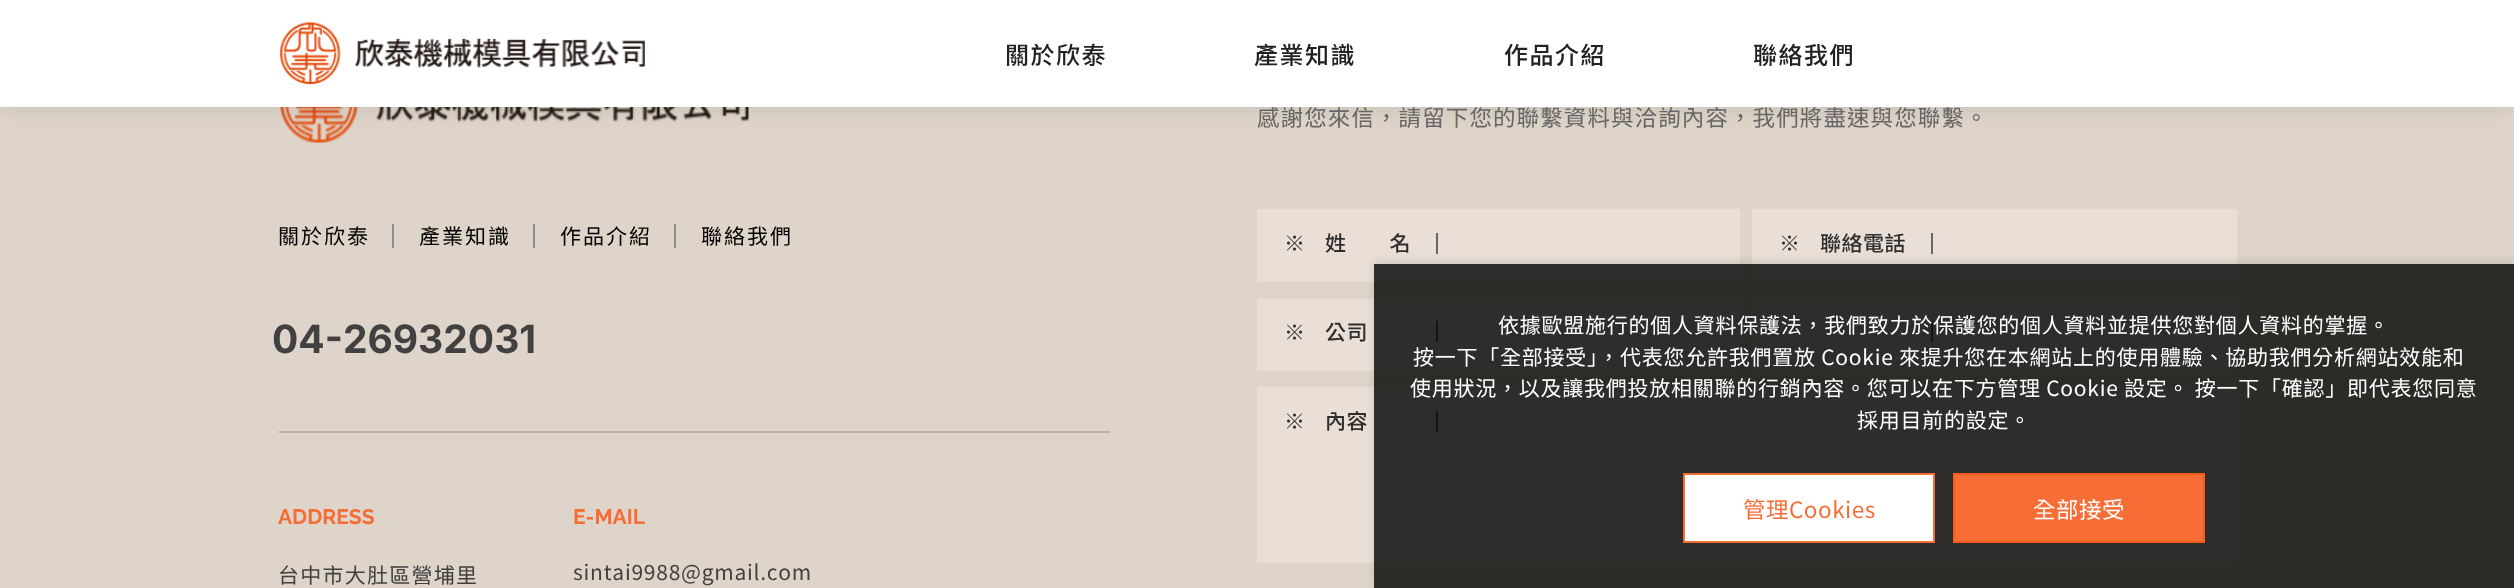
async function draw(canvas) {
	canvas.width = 2514;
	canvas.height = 588;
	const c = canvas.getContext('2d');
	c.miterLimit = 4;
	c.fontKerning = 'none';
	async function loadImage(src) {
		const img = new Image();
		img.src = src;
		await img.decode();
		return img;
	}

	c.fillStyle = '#ded4c9';
	c.fillRect(0, 0, 2514, 588);
	c.drawImage(await loadImage('img2.png'), 280, 107, 469, 36);
	c.fillStyle = '#0000001a';
	c.filter = 'blur(11px)';
	c.beginPath();
	c.rect(0, 0, 2514, 107);
	c.fill();
	c.filter = 'none';
	c.letterSpacing = '1.1px';
	c.font = '22.5px Noto Sans TC';
	c.fillStyle = '#666';
	c.fillText('感謝您來信，請留下您的聯繫資料與洽詢內容，我們將盡速與您聯繫。', 1257, 126);
	c.fillStyle = '#fff';
	c.fillRect(0, 0, 2514, 107);
	c.drawImage(await loadImage('img1.png'), 280, 22, 365, 63);
	c.letterSpacing = '1.5px';
	c.font = '500 24px Noto Sans TC';
	c.fillStyle = '#222';
	for (const [text, x, y] of [
		['關於欣泰', 1005, 64],
		['產業知識', 1254, 64],
		['作品介紹', 1504, 64],
		['聯絡我們', 1753, 64],
	]) {
		c.fillText(text, x, y);
	}
	c.letterSpacing = '2px';
	c.font = '21px Noto Sans TC';
	c.fillStyle = '#000';
	c.fillText('關於欣泰', 278, 244);
	c.fillStyle = '#8f8f8f';
	c.fillRect(392, 224, 2, 24);
	c.fillStyle = '#000';
	c.fillText('產業知識', 419, 244);
	c.fillStyle = '#8f8f8f';
	c.fillRect(533, 224, 2, 24);
	c.fillStyle = '#000';
	c.fillText('作品介紹', 560, 244);
	c.fillStyle = '#8f8f8f';
	c.fillRect(674, 224, 2, 24);
	c.fillStyle = '#000';
	c.fillText('聯絡我們', 701, 244);
	c.letterSpacing = '0px';
	c.font = 'bold 39px Inter';
	c.fillStyle = '#414141';
	c.fillText('04-26932031', 272, 353);
	c.fillStyle = '#beb2a7';
	c.fillRect(279, 431, 831, 2);
	c.font = 'bold 21px Raleway';
	c.fillStyle = '#f76d36';
	c.fillText('ADDRESS', 278, 524);
	c.letterSpacing = '1.25px';
	c.font = '21px Noto Sans TC';
	c.fillStyle = '#414141';
	c.fillText('台中市大肚區營埔里', 278, 583);
	c.letterSpacing = '0px';
	c.font = 'bold 21px Raleway';
	c.fillStyle = '#f76d36';
	c.fillText('E-MAIL', 573, 524);
	c.letterSpacing = '0.75px';
	c.font = '21px Noto Sans TC';
	c.fillStyle = '#414141';
	c.fillText('sintai9988@gmail.com', 573, 580);
	c.fillStyle = '#e9dfd7';
	c.fillRect(1257, 209, 483, 73);
	c.letterSpacing = '0.5px';
	c.font = 'bold 21px Noto Sans TC';
	c.fillStyle = '#2f2f2f';
	c.fillText('※', 1284, 251);
	c.font = '500 21px Noto Sans TC';
	c.fillText('姓　　名', 1325, 251);
	c.fillStyle = '#666';
	c.fillRect(1436, 233, 2, 21);
	c.fillStyle = '#e9dfd7';
	c.fillRect(1752, 209, 485, 73);
	c.font = 'bold 21px Noto Sans TC';
	c.fillStyle = '#2f2f2f';
	c.fillText('※', 1779, 251);
	c.font = '500 21px Noto Sans TC';
	c.fillText('聯絡電話', 1820, 251);
	c.fillStyle = '#666';
	c.fillRect(1931, 233, 2, 21);
	c.fillStyle = '#e9dfd7';
	c.fillRect(1257, 299, 483, 72);
	c.font = 'bold 21px Noto Sans TC';
	c.fillStyle = '#2f2f2f';
	c.fillText('※', 1284, 340);
	c.font = '500 21px Noto Sans TC';
	c.fillText('公司', 1325, 340);
	for (const [x, y, w, h, color] of [
		[1436, 321, 2, 21, '#666'],
		[1752, 299, 485, 72, '#e9dfd7'],
		[1931, 321, 2, 21, '#666'],
		[1257, 387, 980, 176, '#e9dfd7'],
	]) {
		c.fillStyle = color;
		c.fillRect(x, y, w, h);
	}
	c.font = 'bold 21px Noto Sans TC';
	c.fillStyle = '#2f2f2f';
	c.fillText('※', 1284, 429);
	c.font = '500 21px Noto Sans TC';
	c.fillText('內容', 1325, 429);
	c.fillStyle = '#666';
	c.fillRect(1436, 411, 2, 21);
	c.save();
	c.beginPath();
	c.moveTo(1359, 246);
	c.lineTo(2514, 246);
	c.lineTo(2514, 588);
	c.lineTo(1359, 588);
	c.closePath();
	c.moveTo(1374, 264);
	c.lineTo(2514, 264);
	c.lineTo(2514, 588);
	c.lineTo(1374, 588);
	c.closePath();
	c.clip('evenodd');
	c.fillStyle = '#0000001a';
	c.filter = 'blur(4.5px)';
	c.beginPath();
	c.rect(1374, 261, 1140, 324);
	c.fill();
	c.filter = 'none';
	c.restore();
	c.fillStyle = '#000000cc';
	c.fillRect(1374, 264, 1140, 324);
	c.letterSpacing = '0.75px';
	c.font = '21px Noto Sans TC';
	c.fillStyle = '#fff';
	for (const [text, x, y] of [
		['依據歐盟施行的個人資料保護法，我們致力於保護您的個人資料並提供您對個人資料的掌握。', 1498, 333],
		['按一下「全部接受」，代表您允許我們置放 Cookie 來提升您在本網站上的使用體驗、協助我們分析網站效能和', 1413, 365],
		['使用狀況，以及讓我們投放相關聯的行銷內容。您可以在下方管理 Cookie 設定。 按一下「確認」即代表您同意', 1410, 396],
		['採用目前的設定。', 1857, 428],
	]) {
		c.fillText(text, x, y);
	}
	c.beginPath();
	c.rect(1684, 474, 250, 68);
	c.fill();
	c.strokeStyle = '#f76d36';
	c.lineWidth = 2;
	c.stroke();
	c.letterSpacing = '0.5px';
	c.font = '22.5px Noto Sans TC';
	c.fillStyle = '#f76d36';
	c.fillText('管理Cookies', 1743, 518);
	c.beginPath();
	c.rect(1954, 474, 250, 68);
	c.fill();
	c.strokeStyle = '#f65b1d';
	c.stroke();
	c.fillStyle = '#fff';
	c.fillText('全部接受', 2033, 518);
}

draw(document.querySelector('canvas'));
